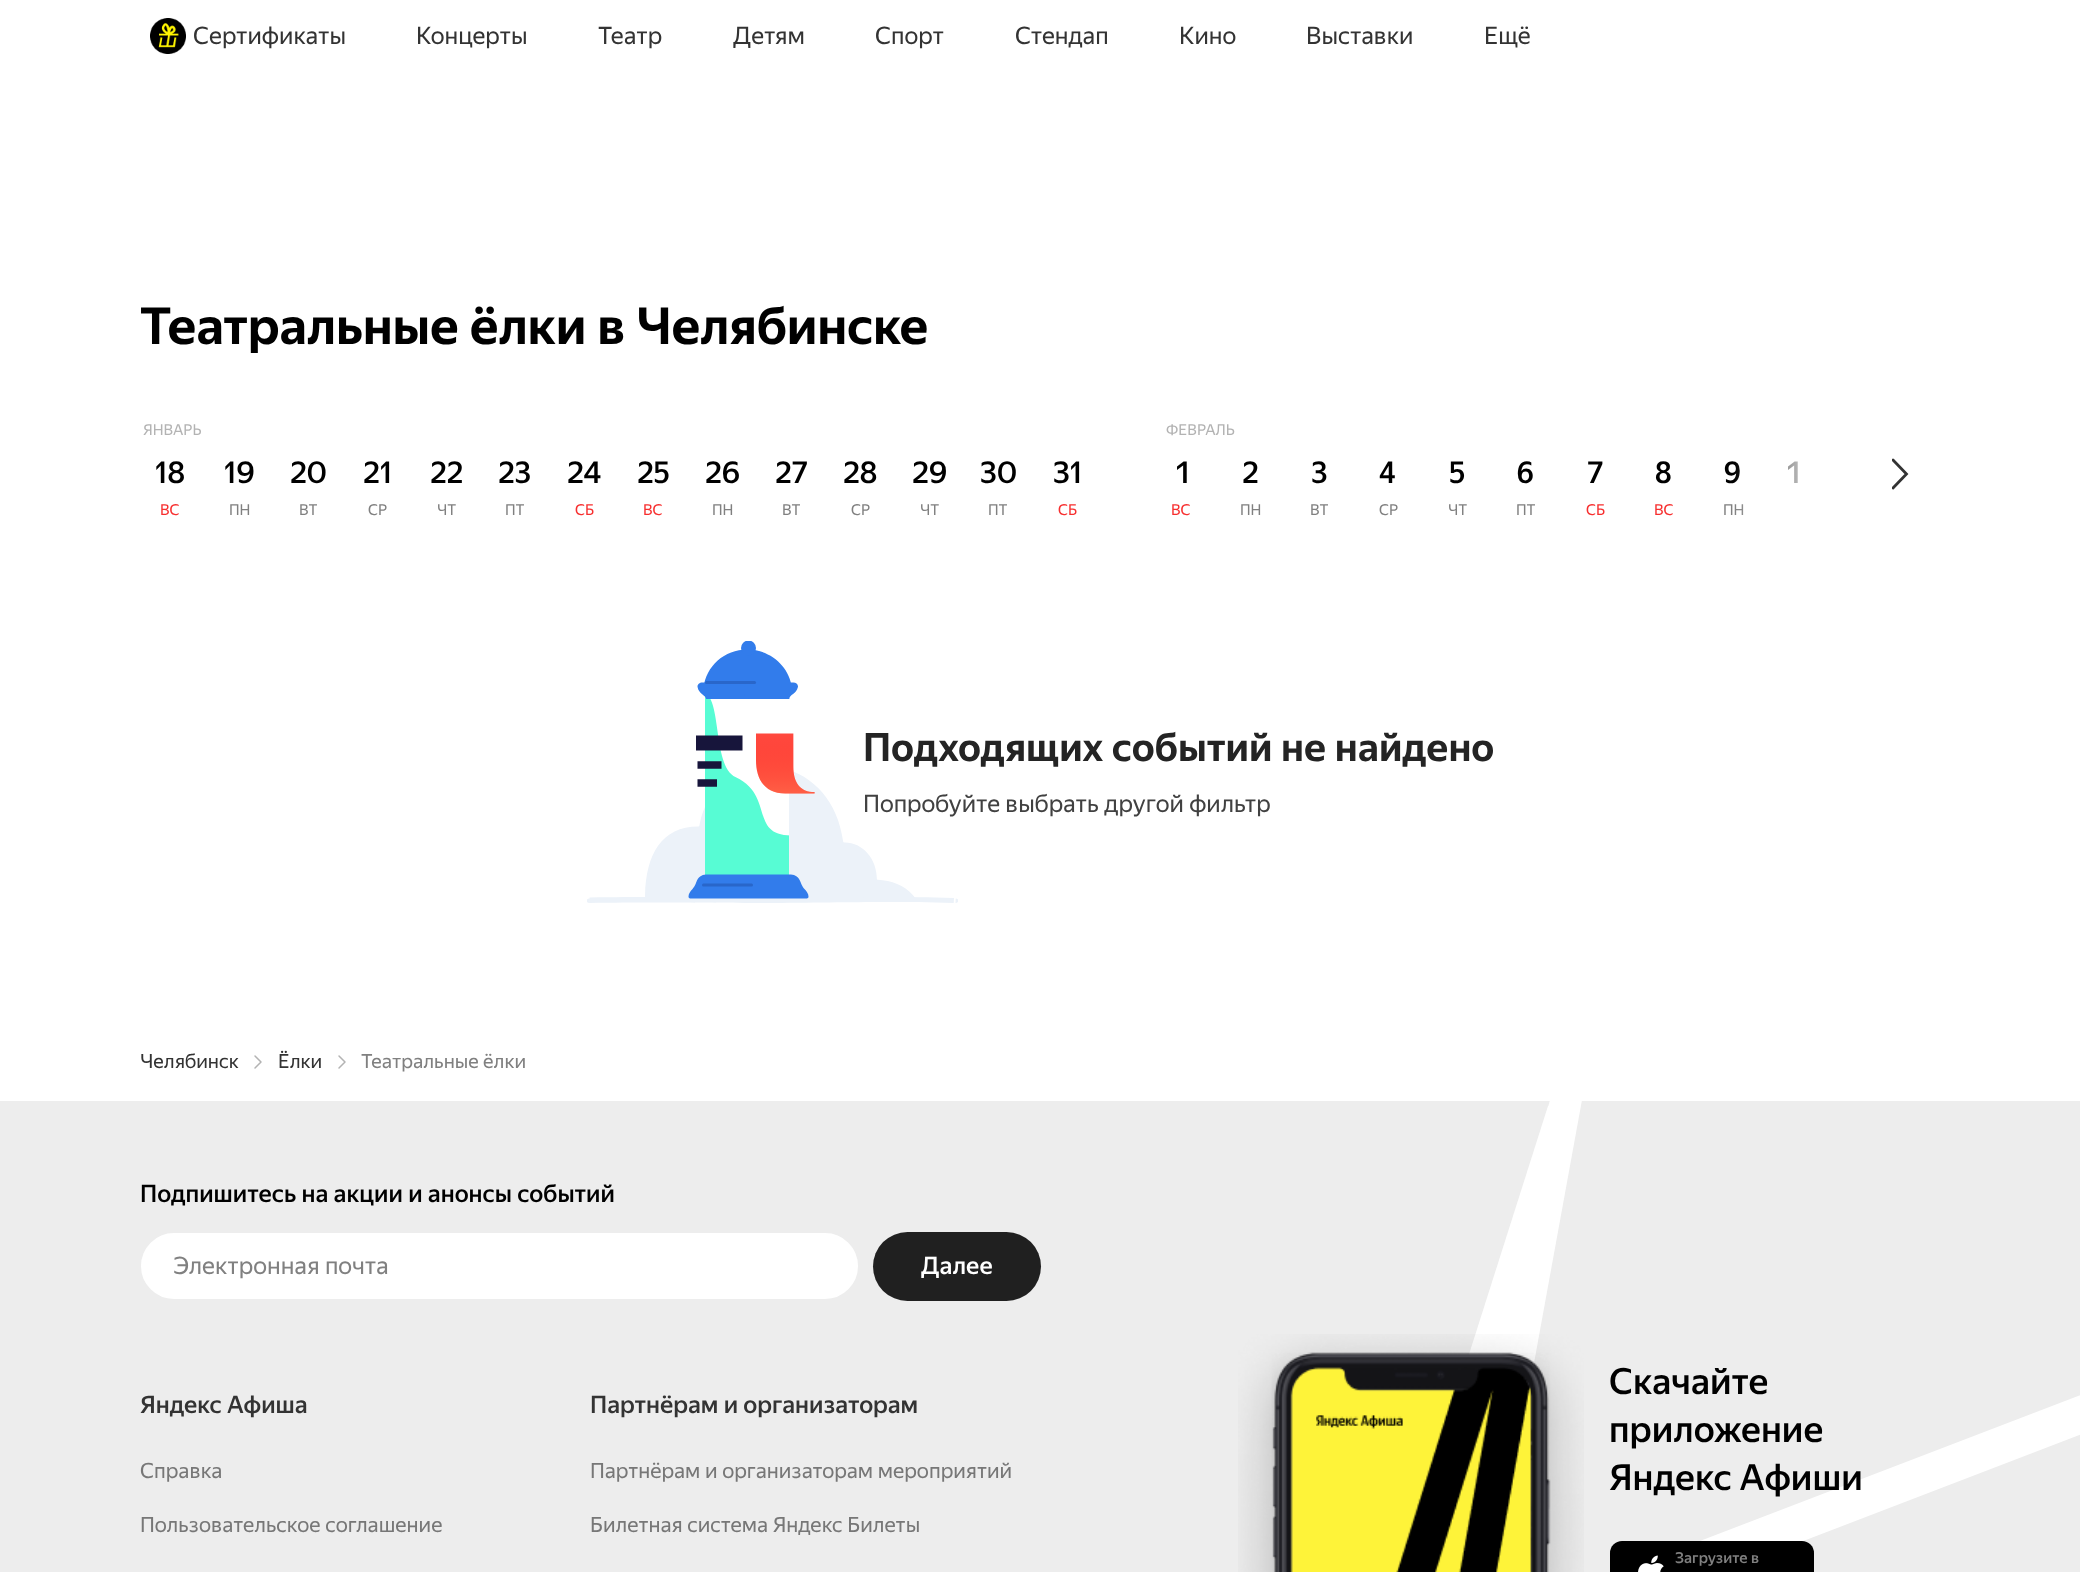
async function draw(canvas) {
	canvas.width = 2080;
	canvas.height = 1572;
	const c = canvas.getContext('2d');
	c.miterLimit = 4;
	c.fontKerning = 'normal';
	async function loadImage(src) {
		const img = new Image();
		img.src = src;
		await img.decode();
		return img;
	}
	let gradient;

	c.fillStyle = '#fff';
	c.fillRect(0, 0, 2080, 1572);
	c.drawImage(await loadImage('img1.png'), 150, 18, 36, 36);
	c.font = '24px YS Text';
	c.fillStyle = '#333';
	for (const [text, x, y] of [
		['Сертификаты', 193, 44],
		['Концерты', 416, 44],
		['Театр', 598, 44],
		['Детям', 733, 44],
		['Спорт', 875, 44],
		['Стендап', 1015, 44],
		['Кино', 1179, 44],
		['Выставки', 1306, 44],
		['Ещё', 1484, 44],
	]) {
		c.fillText(text, x, y);
	}
	c.letterSpacing = '-0.2px';
	c.font = 'bold 51px YS Text';
	c.fillStyle = '#000';
	c.fillText('Театральные ёлки в Челябинске', 140, 344);
	c.letterSpacing = '0px';
	c.font = '15px YS Text';
	c.fillStyle = '#b3b3b3';
	c.fillText('ЯНВАРЬ', 143, 435);
	c.font = '500 30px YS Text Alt';
	c.fillStyle = '#000';
	c.fillText('18', 155, 483);
	c.font = '15px YS Text';
	c.fillStyle = '#f72f2f';
	c.fillText('ВС', 160, 515);
	c.font = '500 30px YS Text Alt';
	c.fillStyle = '#000';
	c.fillText('19', 224, 483);
	c.font = '15px YS Text';
	c.fillStyle = '#808080';
	c.fillText('ПН', 229, 515);
	c.font = '500 30px YS Text Alt';
	c.fillStyle = '#000';
	c.fillText('20', 290, 483);
	c.font = '15px YS Text';
	c.fillStyle = '#808080';
	c.fillText('ВТ', 299, 515);
	c.font = '500 30px YS Text Alt';
	c.fillStyle = '#000';
	c.fillText('21', 363, 483);
	c.font = '15px YS Text';
	c.fillStyle = '#808080';
	c.fillText('СР', 368, 515);
	c.font = '500 30px YS Text';
	c.fillStyle = '#000';
	c.fillText('22', 430, 483);
	c.font = '15px YS Text';
	c.fillStyle = '#808080';
	c.fillText('ЧТ', 437, 515);
	c.font = '500 30px YS Text';
	c.fillStyle = '#000';
	c.fillText('23', 498, 483);
	c.font = '15px YS Text';
	c.fillStyle = '#808080';
	c.fillText('ПТ', 505, 515);
	c.font = '500 30px YS Text Alt';
	c.fillStyle = '#000';
	c.fillText('24', 567, 483);
	c.font = '15px YS Text';
	c.fillStyle = '#f72f2f';
	c.fillText('СБ', 575, 515);
	c.font = '500 30px YS Text';
	c.fillStyle = '#000';
	c.fillText('25', 637, 483);
	c.font = '15px YS Text';
	c.fillStyle = '#f72f2f';
	c.fillText('ВС', 643, 515);
	c.font = '500 30px YS Text Alt';
	c.fillStyle = '#000';
	c.fillText('26', 705, 483);
	c.font = '15px YS Text';
	c.fillStyle = '#808080';
	c.fillText('ПН', 712, 515);
	c.font = '500 30px YS Text';
	c.fillStyle = '#000';
	c.fillText('27', 775, 483);
	c.font = '15px YS Text';
	c.fillStyle = '#808080';
	c.fillText('ВТ', 782, 515);
	c.font = '500 30px YS Text Alt';
	c.fillStyle = '#000';
	c.fillText('28', 843, 483);
	c.font = '15px YS Text';
	c.fillStyle = '#808080';
	c.fillText('СР', 851, 515);
	c.font = '500 30px YS Text Alt';
	c.fillStyle = '#000';
	c.fillText('29', 912, 483);
	c.font = '15px YS Text';
	c.fillStyle = '#808080';
	c.fillText('ЧТ', 920, 515);
	c.font = '500 30px YS Text Alt';
	c.fillStyle = '#000';
	c.fillText('30', 980, 483);
	c.font = '15px YS Text';
	c.fillStyle = '#808080';
	c.fillText('ПТ', 988, 515);
	c.font = '500 30px YS Text Alt';
	c.fillStyle = '#000';
	c.fillText('31', 1053, 483);
	c.font = '15px YS Text';
	c.fillStyle = '#f72f2f';
	c.fillText('СБ', 1058, 515);
	c.fillStyle = '#b3b3b3';
	c.fillText('ФЕВРАЛЬ', 1166, 435);
	c.font = '500 30px YS Text';
	c.fillStyle = '#000';
	c.fillText('1', 1175, 483);
	c.font = '15px YS Text';
	c.fillStyle = '#f72f2f';
	c.fillText('ВС', 1171, 515);
	c.font = '500 30px YS Text';
	c.fillStyle = '#000';
	c.fillText('2', 1242, 483);
	c.font = '15px YS Text';
	c.fillStyle = '#808080';
	c.fillText('ПН', 1240, 515);
	c.font = '500 30px YS Text';
	c.fillStyle = '#000';
	c.fillText('3', 1311, 483);
	c.font = '15px YS Text';
	c.fillStyle = '#808080';
	c.fillText('ВТ', 1310, 515);
	c.font = '500 30px YS Text';
	c.fillStyle = '#000';
	c.fillText('4', 1379, 483);
	c.font = '15px YS Text';
	c.fillStyle = '#808080';
	c.fillText('СР', 1379, 515);
	c.font = '500 30px YS Text';
	c.fillStyle = '#000';
	c.fillText('5', 1449, 483);
	c.font = '15px YS Text';
	c.fillStyle = '#808080';
	c.fillText('ЧТ', 1448, 515);
	c.font = '500 30px YS Text';
	c.fillStyle = '#000';
	c.fillText('6', 1517, 483);
	c.font = '15px YS Text';
	c.fillStyle = '#808080';
	c.fillText('ПТ', 1516, 515);
	c.font = '500 30px YS Text';
	c.fillStyle = '#000';
	c.fillText('7', 1587, 483);
	c.font = '15px YS Text';
	c.fillStyle = '#f72f2f';
	c.fillText('СБ', 1586, 515);
	c.font = '500 30px YS Text';
	c.fillStyle = '#000';
	c.fillText('8', 1655, 483);
	c.font = '15px YS Text';
	c.fillStyle = '#f72f2f';
	c.fillText('ВС', 1654, 515);
	c.font = '500 30px YS Text';
	c.fillStyle = '#000';
	c.fillText('9', 1724, 483);
	c.font = '15px YS Text';
	c.fillStyle = '#808080';
	c.fillText('ПН', 1723, 515);
	c.font = '500 30px YS Text';
	c.fillStyle = '#000';
	c.fillText('1', 1786, 483);
	gradient = c.createLinearGradient(1883, 492, 1733, 492);
	gradient.addColorStop(0, '#fff');
	gradient.addColorStop(0.39, '#fff');
	gradient.addColorStop(1, '#ffffff00');
	c.fillStyle = gradient;
	c.fillRect(1735, 461, 63, 54);
	c.save();
	c.beginPath();
	c.rect(1892, 458, 18, 33);
	c.clip();
	c.beginPath();
	c.moveTo(1893, 488);
	c.lineTo(1906.5, 474);
	c.lineTo(1893, 460);
	c.strokeStyle = '#333';
	c.lineWidth = 2.8;
	c.lineCap = 'round';
	c.stroke();
	c.restore();
	c.drawImage(await loadImage('img2.png'), 587, 641, 371, 262);
	c.font = 'bold 39px YS Text';
	c.fillStyle = '#242424';
	c.fillText('Подходящих событий не найдено', 863, 761);
	c.font = '24px YS Text';
	c.fillStyle = '#414141';
	c.fillText('Попробуйте выбрать другой фильтр', 863, 812);
	c.font = '19.5px YS Text';
	c.fillStyle = '#333';
	c.fillText('Челябинск', 140, 1068);
	c.beginPath();
	c.moveTo(255, 1056);
	c.lineTo(261, 1062);
	c.lineTo(255, 1068);
	c.strokeStyle = '#b3b3b3';
	c.lineWidth = 1.5;
	c.lineCap = 'round';
	c.lineJoin = 'round';
	c.stroke();
	c.fillText('Ёлки', 278, 1068);
	c.beginPath();
	c.moveTo(339, 1056);
	c.lineTo(345, 1062);
	c.lineTo(339, 1068);
	c.stroke();
	c.fillStyle = '#808080';
	c.fillText('Театральные ёлки', 361, 1068);
	c.fillStyle = '#ededed';
	c.fillRect(0, 1101, 2080, 471);
	c.font = '500 24px YS Text';
	c.fillStyle = '#000';
	c.fillText('Подпишитесь на акции и анонсы событий', 140, 1202);
	c.fillStyle = '#fff';
	c.beginPath();
	c.roundRect(142.5, 1234.5, 714, 63, 31.5);
	c.fill();
	c.strokeStyle = '#fff';
	c.lineWidth = 3;
	c.lineJoin = 'miter';
	c.stroke();
	c.font = '24px YS Text';
	c.fillStyle = '#808080';
	c.fillText('Электронная почта', 173, 1274);
	c.fillStyle = '#202020';
	c.beginPath();
	c.roundRect(873, 1232, 168, 69, 34.5);
	c.fill();
	c.font = '500 24px YS Text';
	c.fillStyle = '#fff';
	c.fillText('Далее', 921, 1274);
	c.fillStyle = '#333';
	c.fillText('Яндекс Афиша', 140, 1413);
	c.font = '21px YS Text';
	c.fillStyle = '#777';
	c.fillText('Справка', 140, 1478);
	c.fillText('Пользовательское соглашение', 140, 1532);
	c.font = '500 24px YS Text';
	c.fillStyle = '#333';
	c.fillText('Партнёрам и организаторам', 590, 1413);
	c.font = '21px YS Text';
	c.fillStyle = '#777';
	c.fillText('Партнёрам и организаторам мероприятий', 590, 1478);
	c.fillText('Билетная система Яндекс Билеты', 590, 1532);
	c.save();
	c.beginPath();
	c.rect(1212, 1101, 371, 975);
	c.clip();
	c.fillStyle = '#fff';
	c.beginPath();
	c.moveTo(1334, 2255);
	c.lineTo(1536, 1152);
	c.lineTo(1550, 1100);
	c.lineTo(1582, 1100);
	c.lineTo(1370, 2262);
	c.closePath();
	c.fill('evenodd');
	c.restore();
	c.fillStyle = '#fff';
	c.beginPath();
	c.moveTo(1173, 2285);
	c.lineTo(1548, 1106);
	c.lineTo(1580, 1106);
	c.lineTo(1568, 1162);
	c.lineTo(1209, 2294);
	c.closePath();
	c.fill('evenodd');
	c.drawImage(await loadImage('img3.png'), 1238, 1334, 346, 238);
	c.font = '500 36px YS Text';
	c.fillStyle = '#000';
	c.fillText('Скачайте', 1609, 1394);
	c.fillStyle = '#fff';
	c.beginPath();
	c.moveTo(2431, 1300);
	c.lineTo(251, 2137);
	c.lineTo(240, 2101);
	c.lineTo(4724, 381);
	c.lineTo(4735, 416);
	c.closePath();
	c.fill('evenodd');
	c.fillStyle = '#000';
	c.fillText('приложение', 1609, 1442);
	c.fillText('Яндекс Афиши', 1609, 1490);
	c.beginPath();
	c.roundRect(1610, 1541, 204, 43, 12);
	c.fill();
	c.drawImage(await loadImage('img4.png'), 1638, 1555, 26, 17);
	c.font = '500 15px YS Text';
	c.fillStyle = '#808080';
	c.fillText('Загрузите в', 1675, 1563);
}

draw(document.querySelector('canvas'));
